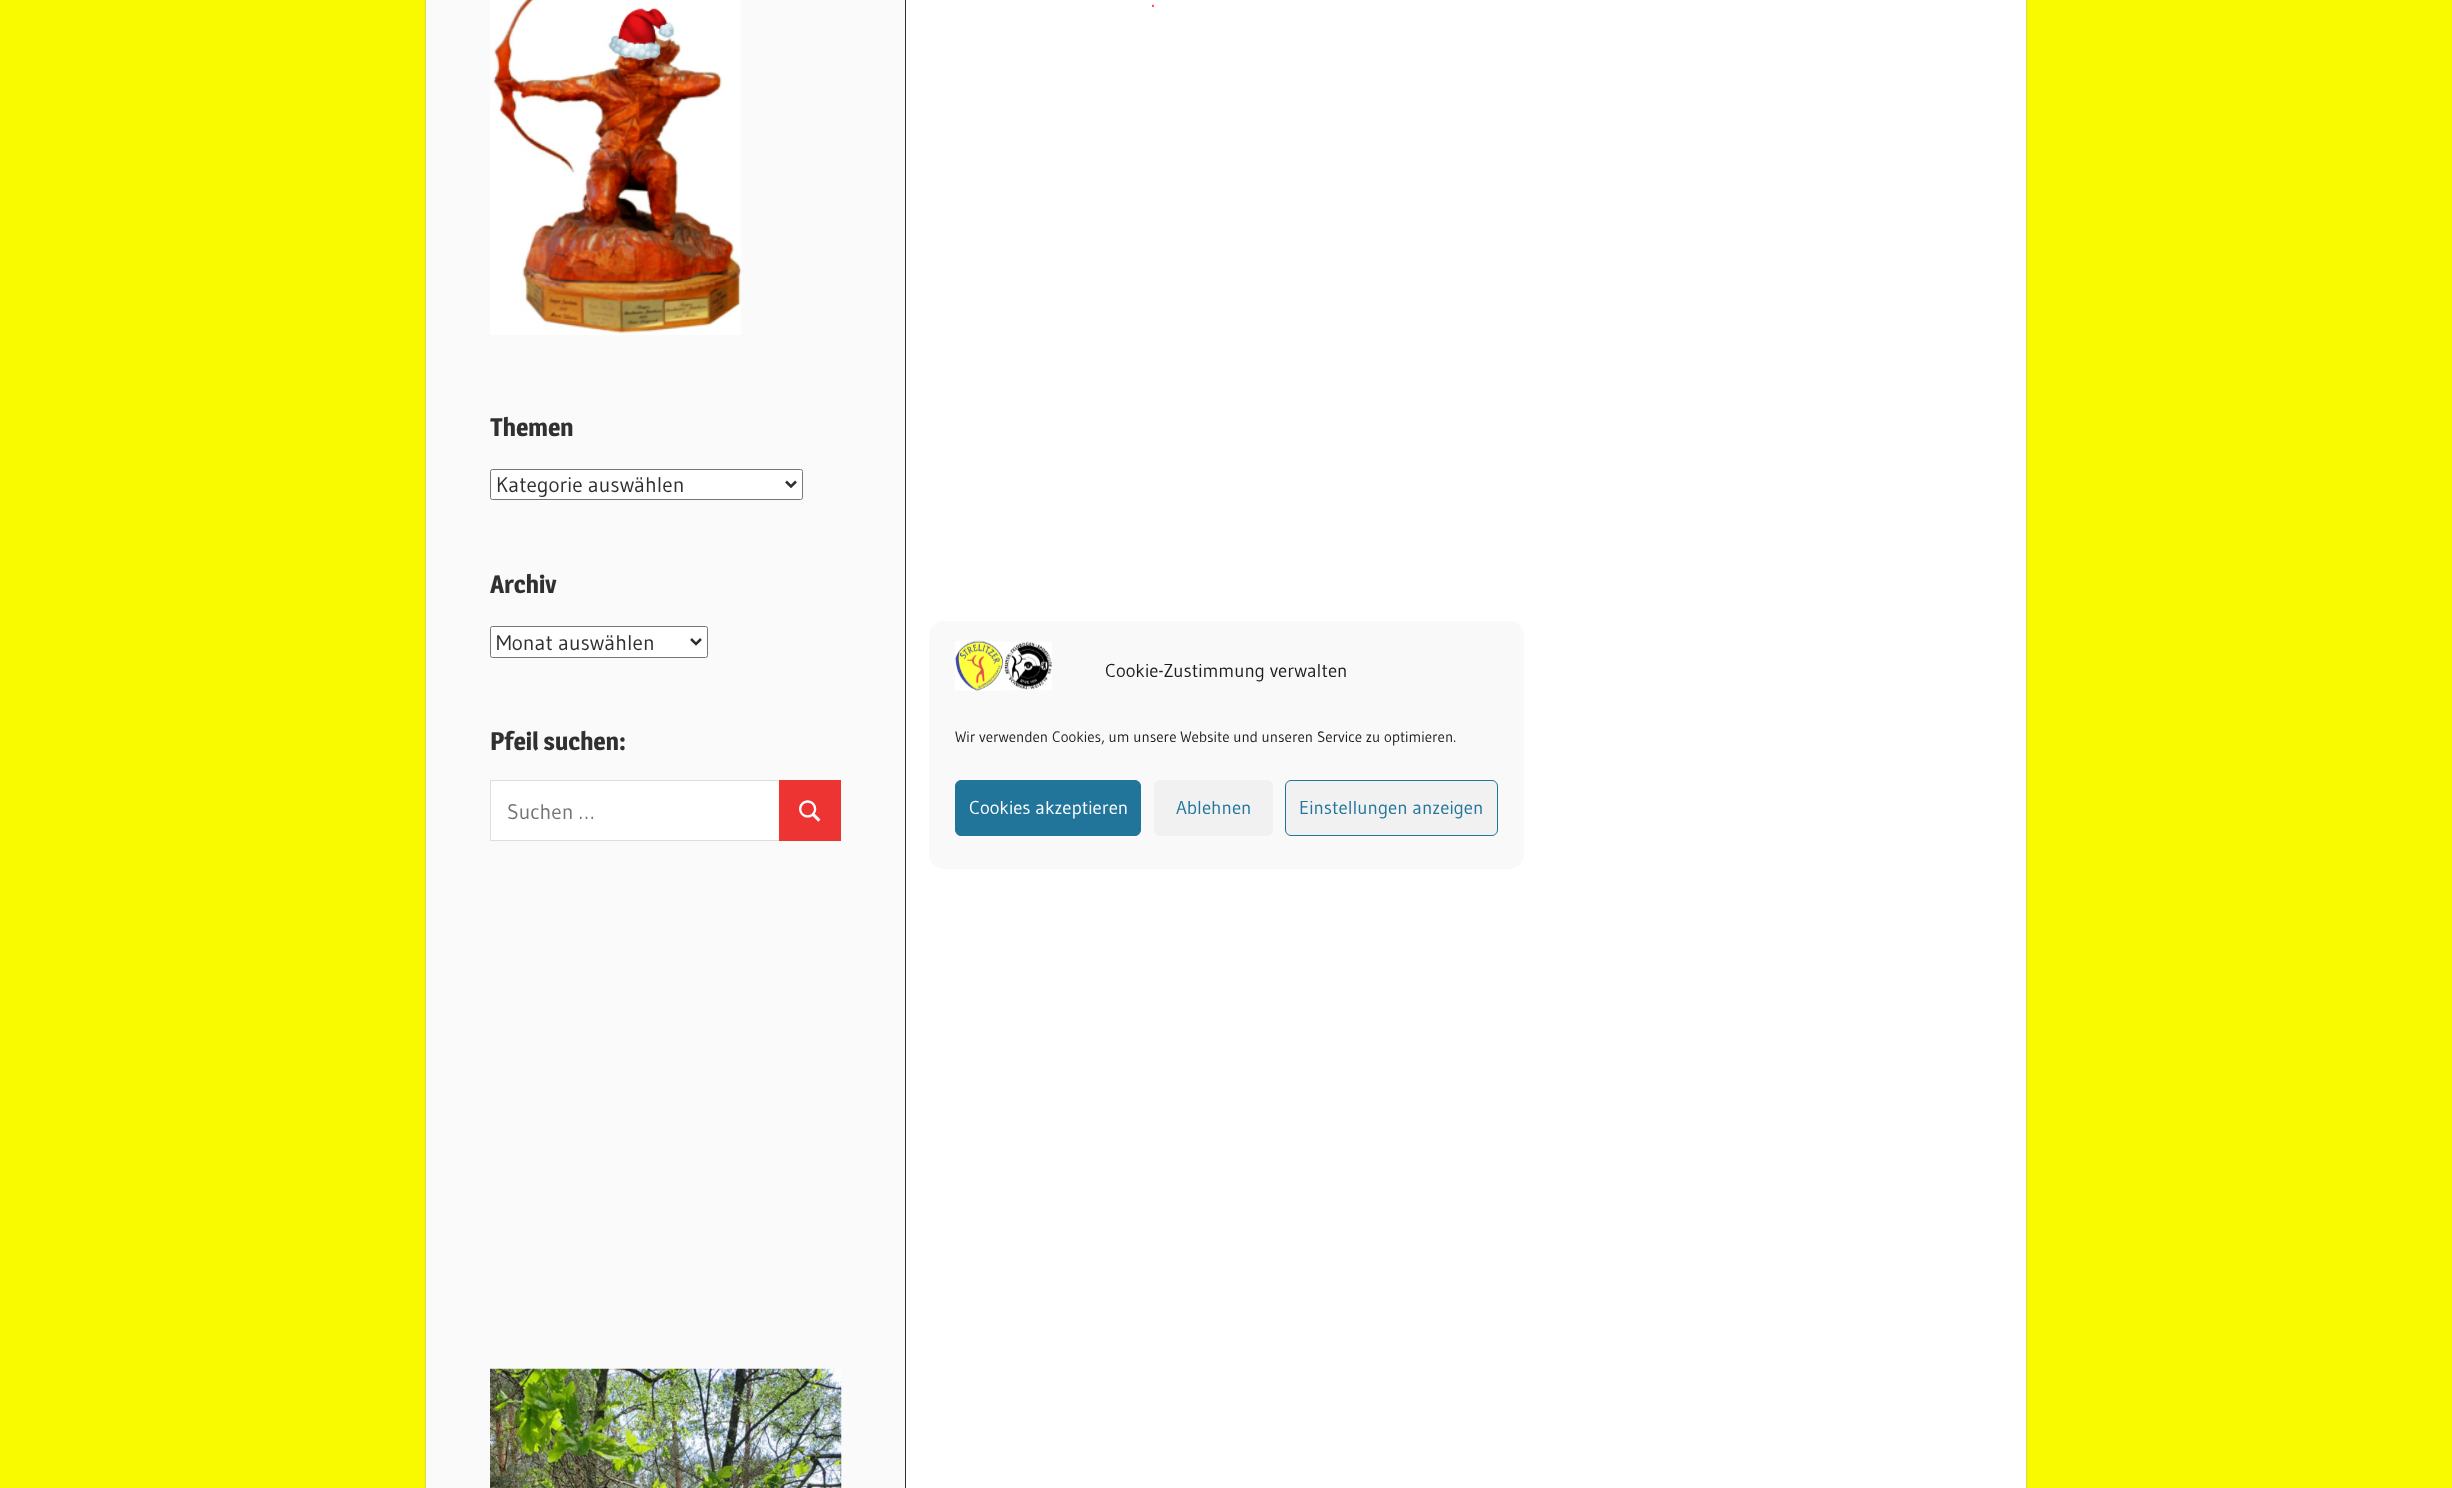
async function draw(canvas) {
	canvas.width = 2452;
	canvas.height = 1488;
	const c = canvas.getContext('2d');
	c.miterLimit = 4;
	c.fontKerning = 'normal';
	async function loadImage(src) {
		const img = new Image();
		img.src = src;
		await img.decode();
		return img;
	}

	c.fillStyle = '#f9f900';
	c.fillRect(0, 0, 2452, 1488);
	c.fillStyle = '#aaa';
	c.filter = 'blur(1px)';
	c.beginPath();
	c.rect(426, -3, 1600, 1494);
	c.fill();
	c.filter = 'none';
	c.fillStyle = '#fff';
	c.fillRect(906, 0, 1120, 1488);
	c.font = '21.25px Gudea';
	c.fillStyle = '#e33';
	c.fillText('.', 1151, 7);
	c.fillStyle = '#fafafa';
	c.fillRect(426, 0, 479, 1488);
	c.fillStyle = '#303030';
	c.fillRect(905, 0, 1, 1488);
	c.drawImage(await loadImage('img1.png'), 490, 0, 252, 335);
	c.font = 'bold 25px Magra';
	c.fillText('Themen', 490, 436);
	c.fillStyle = '#fff';
	c.beginPath();
	c.roundRect(490.5, 469.5, 312, 30, 2);
	c.fill();
	c.strokeStyle = '#767676';
	c.stroke();
	c.beginPath();
	c.moveTo(786, 481.5);
	c.lineTo(791, 486.5);
	c.lineTo(796, 481.5);
	c.strokeStyle = '#303030';
	c.lineWidth = 2.5;
	c.stroke();
	c.font = '21.25px Gudea';
	c.fillStyle = '#303030';
	c.fillText('Kategorie auswählen', 496, 492);
	c.font = 'bold 25px Magra';
	c.fillText('Archiv', 490, 593);
	c.fillStyle = '#fff';
	c.beginPath();
	c.roundRect(490.5, 626.5, 217, 31, 2);
	c.fill();
	c.strokeStyle = '#767676';
	c.lineWidth = 1;
	c.stroke();
	c.beginPath();
	c.moveTo(691, 639);
	c.lineTo(696, 644);
	c.lineTo(701, 639);
	c.strokeStyle = '#303030';
	c.lineWidth = 2.5;
	c.stroke();
	c.font = '21.25px Gudea';
	c.fillStyle = '#303030';
	c.fillText('Monat auswählen', 496, 650);
	c.font = 'bold 25px Magra';
	c.fillText('Pfeil suchen:', 490, 750);
	c.fillStyle = '#fff';
	c.beginPath();
	c.rect(490.5, 780.5, 289, 60);
	c.fill();
	c.strokeStyle = '#ddd';
	c.lineWidth = 1;
	c.stroke();
	c.font = '21.25px Gudea';
	c.fillStyle = '#757575';
	c.fillText('Suchen …', 507, 819);
	c.fillStyle = '#e33';
	c.fillRect(779, 780, 62, 61);
	c.drawImage(await loadImage('img2.png'), 799, 800, 22, 22);
	c.drawImage(await loadImage('img3.png'), 490, 1368, 352, 120);
	c.fillStyle = '#f9f9f9';
	c.beginPath();
	c.roundRect(929, 621, 595, 248, 15);
	c.fill();
	c.drawImage(await loadImage('img4.png'), 955, 640, 97, 51);
	c.font = '18.75px Gudea';
	c.fillStyle = '#191e23';
	c.fillText('Cookie-Zustimmung verwalten', 1105, 677);
	c.font = '15px Gudea';
	c.fillText('Wir verwenden Cookies, um unsere Website und unseren Service zu optimieren.', 955, 742);
	c.fillStyle = '#21759b';
	c.beginPath();
	c.roundRect(955.5, 780.5, 185, 55, 5.5);
	c.fill();
	c.strokeStyle = '#21759b';
	c.stroke();
	c.font = '18.75px Gudea';
	c.fillStyle = '#fff';
	c.fillText('Cookies akzeptieren', 969, 814);
	c.fillStyle = '#f1f1f1';
	c.beginPath();
	c.roundRect(1154, 780, 119, 56, 6);
	c.fill();
	c.fillStyle = '#21759b';
	c.fillText('Ablehnen', 1176, 814);
	c.fillStyle = '#f1f1f1';
	c.beginPath();
	c.roundRect(1285.5, 780.5, 212, 55, 5.5);
	c.fill();
	c.stroke();
	c.fillStyle = '#21759b';
	c.fillText('Einstellungen anzeigen', 1299, 814);
}

draw(document.querySelector('canvas'));
